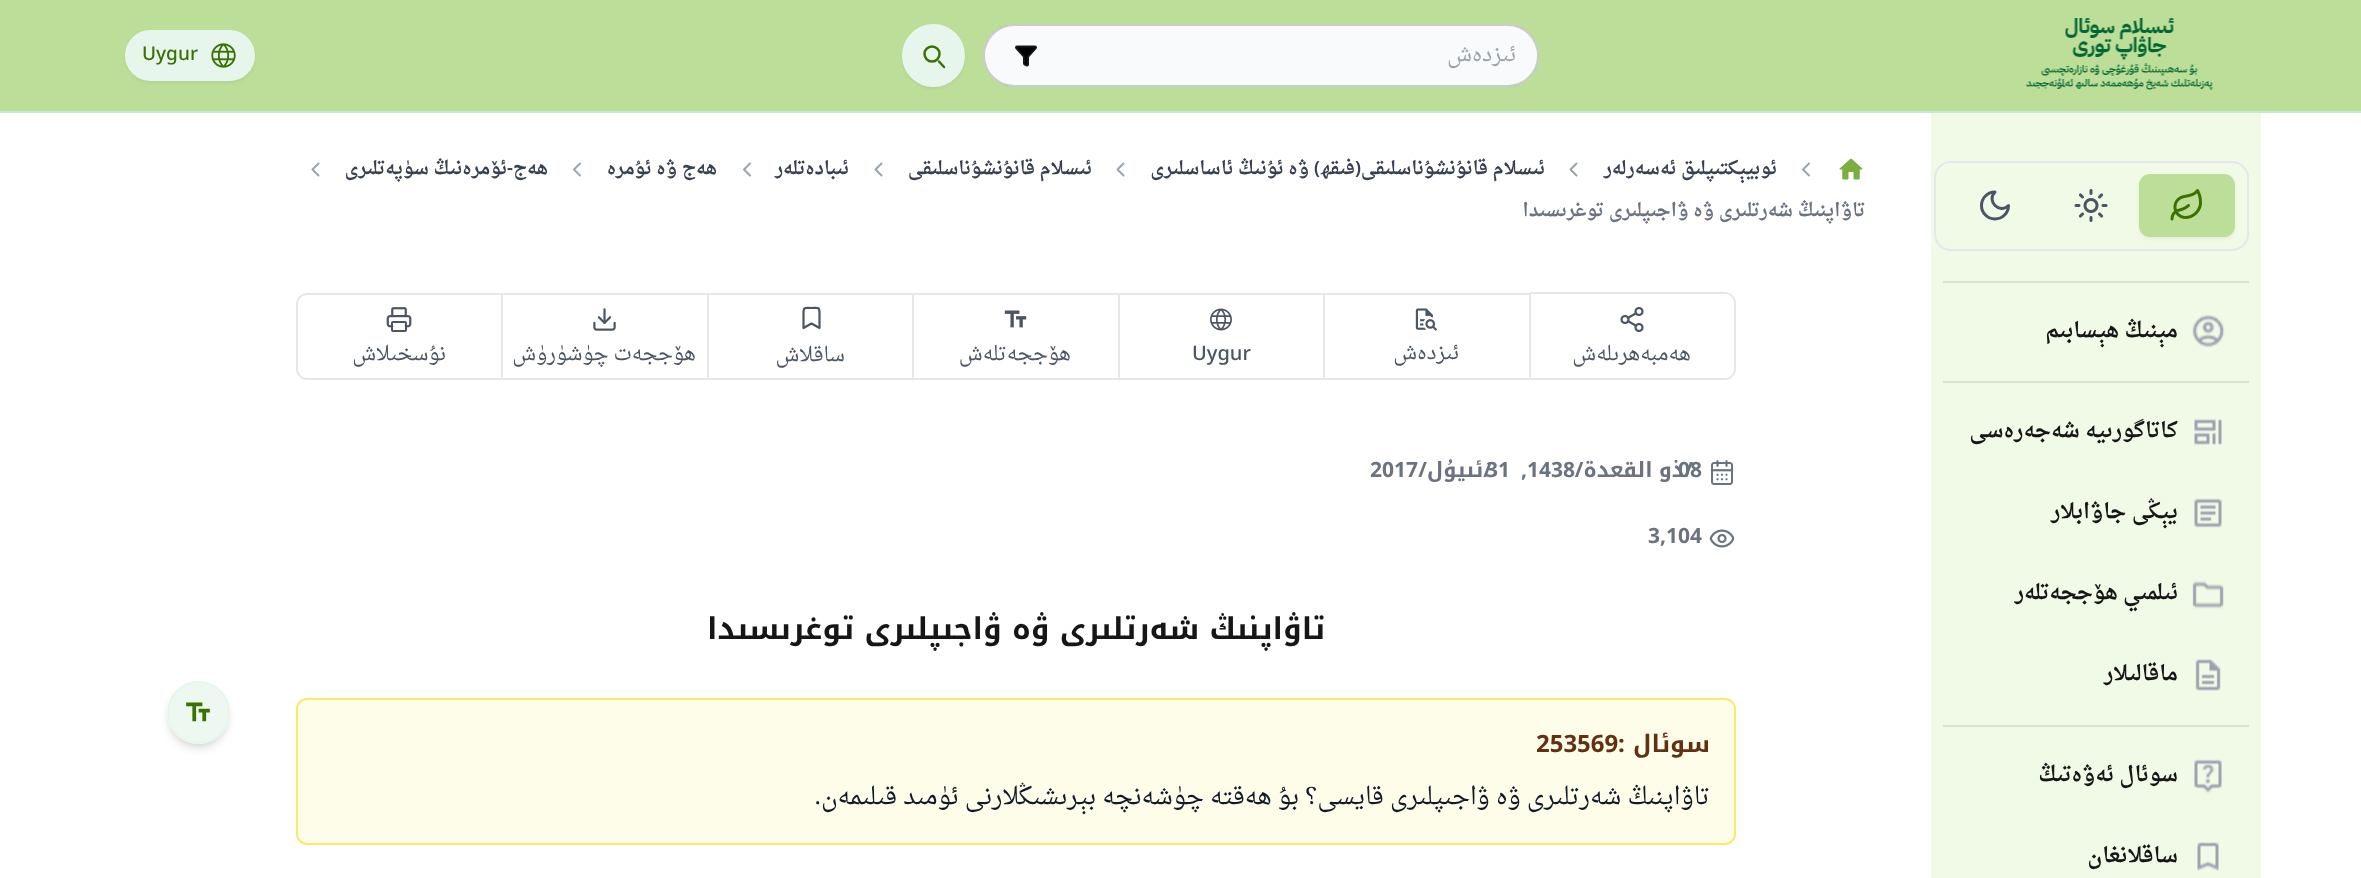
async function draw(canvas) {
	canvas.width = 2361;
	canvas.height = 878;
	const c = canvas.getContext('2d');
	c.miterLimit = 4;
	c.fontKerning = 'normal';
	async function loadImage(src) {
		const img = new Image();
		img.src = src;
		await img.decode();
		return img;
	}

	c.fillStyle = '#fff';
	c.fillRect(0, 0, 2361, 878);
	c.fillStyle = '#bdde98';
	c.fillRect(0, 0, 2361, 111);
	c.fillStyle = '#c4ead1';
	c.fillRect(0, 111, 2361, 2);
	c.drawImage(await loadImage('img1.png'), 2026, 18, 187, 72);
	c.fillStyle = '#f9fafb';
	c.beginPath();
	c.roundRect(983, 24, 556, 63, 31.5);
	c.fill();
	c.beginPath();
	c.roundRect(984, 25, 554, 61, 30.5);
	c.strokeStyle = '#16161633';
	c.lineWidth = 2;
	c.stroke();
	c.direction = 'rtl';
	c.font = '21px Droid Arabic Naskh';
	c.fillStyle = '#9ca3af';
	c.fillText('ئىزدەش', 1516, 61);
	c.drawImage(await loadImage('img2.png'), 1015, 45, 22, 22);
	c.fillStyle = '#0000000d';
	c.filter = 'blur(1.5px)';
	c.beginPath();
	c.roundRect(902, 26, 63, 63, 31.5);
	c.fill();
	c.filter = 'none';
	c.fillStyle = '#e7f6ec';
	c.beginPath();
	c.arc(933.5, 55.5, 30.5, 0, 2 * Math.PI);
	c.fill();
	c.strokeStyle = '#e7f6ec';
	c.stroke();
	c.beginPath();
	c.moveTo(944, 67);
	c.lineTo(939, 61.5);
	c.strokeStyle = '#3c7101';
	c.lineWidth = 2.5;
	c.lineCap = 'round';
	c.lineJoin = 'round';
	c.stroke();
	c.beginPath();
	c.arc(932, 54, 7.5, 0, 2 * Math.PI);
	c.stroke();
	c.fillStyle = '#0000000d';
	c.filter = 'blur(1.5px)';
	c.beginPath();
	c.roundRect(125, 32, 130, 51, 25.5);
	c.fill();
	c.filter = 'none';
	c.fillStyle = '#e7f6ec';
	c.beginPath();
	c.roundRect(126, 31, 128, 49, 24.5);
	c.fill();
	c.strokeStyle = '#e7f6ec';
	c.lineWidth = 2;
	c.lineJoin = 'miter';
	c.stroke();
	c.drawImage(await loadImage('img3.png'), 211, 43, 25, 25);
	c.direction = 'ltr';
	c.font = '500 19px Noto Kufi Arabic';
	c.fillStyle = '#3c7101';
	c.fillText('Uygur', 142, 60);
	c.fillStyle = '#f1f9e7';
	c.fillRect(1931, 113, 330, 765);
	c.beginPath();
	c.roundRect(1935, 162, 313, 88, 16);
	c.strokeStyle = '#e5e7eb';
	c.stroke();
	c.fillStyle = '#0000000d';
	c.filter = 'blur(1.5px)';
	c.beginPath();
	c.roundRect(2139, 176, 96, 63, 11);
	c.fill();
	c.filter = 'none';
	c.fillStyle = '#bdde98';
	c.beginPath();
	c.roundRect(2139, 174, 96, 63, 11);
	c.fill();
	c.drawImage(await loadImage('img4.png'), 2170, 189, 32, 32);
	c.drawImage(await loadImage('img5.png'), 2074, 189, 34, 33);
	c.beginPath();
	c.moveTo(1995, 192);
	c.bezierCurveTo(1986, 201, 1999.5, 214.5, 2008.5, 205.5);
	c.bezierCurveTo(2008.5, 213, 2002.5, 219, 1995, 219);
	c.bezierCurveTo(1987.5, 219, 1981.5, 213, 1981.5, 205.5);
	c.bezierCurveTo(1981.5, 198, 1987.5, 192, 1995, 192);
	c.closePath();
	c.strokeStyle = '#4b5563';
	c.lineWidth = 3;
	c.lineJoin = 'round';
	c.stroke();
	c.fillStyle = '#dbe2d2';
	c.fillRect(1943, 281, 306, 2);
	c.drawImage(await loadImage('img6.png'), 2192, 314, 33, 34);
	c.direction = 'rtl';
	c.font = 'bold 21px Droid Arabic Naskh';
	c.fillStyle = '#161616';
	c.fillText('مېنىڭ ھېسابىم', 2178, 337);
	c.fillStyle = '#dbe2d2';
	c.fillRect(1943, 381, 306, 2);
	c.drawImage(await loadImage('img7.png'), 2194, 419, 28, 26);
	c.fillStyle = '#161616';
	c.fillText('كاتاگورىيە شەجەرەسى', 2178, 437);
	c.drawImage(await loadImage('img8.png'), 2194, 498, 28, 30);
	c.fillText('يېڭى جاۋابلار', 2178, 518);
	c.drawImage(await loadImage('img9.png'), 2192, 581, 32, 28);
	c.fillText('ئىلمىي ھۆججەتلەر', 2178, 599);
	c.drawImage(await loadImage('img10.png'), 2195, 659, 26, 32);
	c.fillText('ماقالىلار', 2178, 680);
	c.fillStyle = '#dbe2d2';
	c.fillRect(1943, 725, 306, 2);
	c.drawImage(await loadImage('img11.png'), 2194, 759, 28, 34);
	c.fillStyle = '#161616';
	c.fillText('سوئال ئەۋەتىڭ', 2178, 781);
	c.drawImage(await loadImage('img12.png'), 2197, 842, 22, 29);
	c.fillText('ساقلانغان', 2178, 862);
	c.drawImage(await loadImage('img13.png'), 1839, 158, 24, 22);
	c.beginPath();
	c.moveTo(1809, 163.5);
	c.lineTo(1803, 169.5);
	c.lineTo(1809, 175.5);
	c.strokeStyle = '#9ca3af';
	c.lineWidth = 2;
	c.stroke();
	c.font = 'bold 18.4px Droid Arabic Naskh';
	c.fillStyle = '#374151';
	c.fillText('ئوبيېكتىپلىق ئەسەرلەر', 1777, 174);
	c.beginPath();
	c.moveTo(1576.5, 163.5);
	c.lineTo(1570.5, 169.5);
	c.lineTo(1576.5, 175.5);
	c.stroke();
	c.fillText('ئىسلام قانۇنشۇناسلىقى', 1545, 174);
	c.font = '600 18.4px Noto Kufi Arabic';
	c.fillText('(', 1361, 174);
	c.font = 'bold 18.4px Droid Arabic Naskh';
	c.fillText('فىقھ', 1355, 174);
	c.font = '600 18.4px Noto Kufi Arabic';
	c.fillText(')', 1320, 174);
	c.font = 'bold 18.4px Droid Arabic Naskh';
	c.fillText('ۋە ئۇنىڭ ئاساسلىرى', 1309, 174);
	c.beginPath();
	c.moveTo(1123.5, 163.5);
	c.lineTo(1117.5, 169.5);
	c.lineTo(1123.5, 175.5);
	c.stroke();
	c.fillText('ئىسلام قانۇنشۇناسلىقى', 1092, 174);
	c.beginPath();
	c.moveTo(881.5, 163.5);
	c.lineTo(875.5, 169.5);
	c.lineTo(881.5, 175.5);
	c.stroke();
	c.fillText('ئىبادەتلەر', 849, 174);
	c.beginPath();
	c.moveTo(750, 163.5);
	c.lineTo(744, 169.5);
	c.lineTo(750, 175.5);
	c.stroke();
	c.fillText('ھەج ۋە ئۇمرە', 717, 174);
	c.beginPath();
	c.moveTo(580, 163.5);
	c.lineTo(574, 169.5);
	c.lineTo(580, 175.5);
	c.stroke();
	c.fillText('ھەج', 548, 174);
	c.font = '600 18.4px Noto Kufi Arabic';
	c.fillText('-', 513, 174);
	c.font = 'bold 18.4px Droid Arabic Naskh';
	c.fillText('ئۆمرەنىڭ سۈپەتلىرى', 507, 174);
	c.beginPath();
	c.moveTo(318.5, 163.5);
	c.lineTo(312.5, 169.5);
	c.lineTo(318.5, 175.5);
	c.stroke();
	c.fillStyle = '#6b7280';
	c.fillText('تاۋاپنىڭ شەرتلىرى ۋە ۋاجىپلىرى توغرىسىدا', 1865, 216);
	c.fillStyle = '#e5e7eb';
	c.beginPath();
	c.moveTo(1530, 292);
	c.lineTo(1725, 292);
	c.bezierCurveTo(1731, 292, 1736, 297, 1736, 303);
	c.lineTo(1736, 369);
	c.bezierCurveTo(1736, 375, 1731, 380, 1725, 380);
	c.lineTo(1530, 380);
	c.closePath();
	c.moveTo(1530, 294);
	c.lineTo(1725, 294);
	c.bezierCurveTo(1730, 294, 1734, 298, 1734, 303);
	c.lineTo(1734, 369);
	c.bezierCurveTo(1734, 374, 1730, 378, 1725, 378);
	c.lineTo(1530, 378);
	c.closePath();
	c.fill('evenodd');
	c.drawImage(await loadImage('img14.png'), 1620, 306, 24, 27);
	c.font = '20px Droid Arabic Naskh';
	c.fillStyle = '#4b5563';
	c.fillText('ھەمبەھرىلەش', 1691, 360);
	for (const [x, y, w, h, color] of [
		[503, 293, 1027, 2, '#e5e7eb'],
		[1529, 293, 2, 87, '#e5e7eb'],
		[1325, 378, 205, 2, '#e5e7eb'],
	]) {
		c.fillStyle = color;
		c.fillRect(x, y, w, h);
	}
	c.drawImage(await loadImage('img15.png'), 1415, 308, 23, 23);
	c.fillStyle = '#4b5563';
	c.fillText('ئىزدەش', 1459, 359);
	c.fillStyle = '#e5e7eb';
	c.fillRect(1323, 293, 2, 87);
	c.fillRect(1119, 378, 206, 2);
	c.drawImage(await loadImage('img16.png'), 1210, 308, 22, 23);
	c.direction = 'ltr';
	c.font = '500 20px Noto Kufi Arabic';
	c.fillStyle = '#4b5563';
	c.fillText('Uygur', 1192, 360);
	c.fillStyle = '#e5e7eb';
	c.fillRect(1118, 293, 2, 87);
	c.fillRect(914, 378, 205, 2);
	c.drawImage(await loadImage('img17.png'), 1004, 310, 23, 18);
	c.direction = 'rtl';
	c.font = '20px Droid Arabic Naskh';
	c.fillStyle = '#4b5563';
	c.fillText('ھۆججەتلەش', 1071, 360);
	c.fillStyle = '#e5e7eb';
	c.fillRect(912, 293, 2, 87);
	c.fillRect(708, 378, 206, 2);
	c.beginPath();
	c.moveTo(819.5, 328);
	c.lineTo(811.5, 323.5);
	c.lineTo(803.5, 328);
	c.lineTo(803.5, 313);
	c.bezierCurveTo(803.5, 306.5, 805, 308, 811.5, 308);
	c.bezierCurveTo(818, 308, 819.5, 306.5, 819.5, 313);
	c.closePath();
	c.strokeStyle = '#4b5563';
	c.lineWidth = 2.2;
	c.stroke();
	c.fillStyle = '#4b5563';
	c.fillText('ساقلاش', 845, 361);
	c.fillStyle = '#e5e7eb';
	c.fillRect(707, 293, 2, 87);
	c.fillRect(503, 378, 205, 2);
	c.drawImage(await loadImage('img18.png'), 593, 308, 23, 23);
	c.fillStyle = '#4b5563';
	c.fillText('ھۆججەت چۈشۈرۈش', 696, 360);
	c.beginPath();
	c.roundRect(297, 294, 205, 85, [10, 0, 0, 10]);
	c.strokeStyle = '#e5e7eb';
	c.lineWidth = 2;
	c.lineJoin = 'miter';
	c.stroke();
	c.drawImage(await loadImage('img19.png'), 386, 307, 26, 25);
	c.fillText('نۇسخىلاش', 446, 360);
	c.drawImage(await loadImage('img20.png'), 1710, 460, 24, 25);
	c.wordSpacing = '-1px';
	c.font = 'bold 21px Noto Kufi Arabic';
	c.fillStyle = '#6b7280';
	c.fillText('/ذو القعدة/', 1693, 477);
	c.wordSpacing = '0px';
	c.direction = 'ltr';
	c.fillText(',1438', 1521, 477);
	c.direction = 'rtl';
	c.fillText('/ئىيۇل/', 1492, 477);
	c.direction = 'ltr';
	for (const [text, x, y] of [
		['31', 1486, 477],
		['2017', 1370, 477],
		['08', 1678, 477],
	]) {
		c.fillText(text, x, y);
	}
	c.drawImage(await loadImage('img21.png'), 1709, 529, 26, 19);
	c.fillText('3,104', 1648, 543);
	c.direction = 'rtl';
	c.font = 'bold 30px Noto Kufi Arabic';
	c.fillStyle = '#161616';
	c.fillText('تاۋاپنىڭ شەرتلىرى ۋە ۋاجىپلىرى توغرىسىدا', 1325, 639);
	c.fillStyle = '#fdfdea';
	c.beginPath();
	c.roundRect(297, 699, 1438, 145, 10);
	c.fill();
	c.strokeStyle = '#fce96a';
	c.stroke();
	c.font = 'bold 23.95px Noto Kufi Arabic';
	c.fillStyle = '#633112';
	c.fillText('سوئال', 1710, 752);
	c.direction = 'ltr';
	c.fillText(':', 1618, 752);
	c.fillText('253569', 1536, 752);
	c.direction = 'rtl';
	c.font = '23.95px Droid Arabic Naskh';
	c.fillStyle = '#111928';
	c.fillText('تاۋاپنىڭ شەرتلىرى ۋە ۋاجىپلىرى قايسى؟ بۇ ھەقتە چۈشەنچە بېرىشىڭلارنى ئۈمىد قىلىمەن', 1710, 804);
	c.font = '23.95px Noto Kufi Arabic';
	c.fillText('.', 821, 804);
	c.save();
	c.beginPath();
	c.moveTo(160, 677);
	c.lineTo(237, 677);
	c.lineTo(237, 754);
	c.lineTo(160, 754);
	c.closePath();
	c.moveTo(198.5, 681);
	c.bezierCurveTo(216, 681, 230, 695, 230, 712.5);
	c.bezierCurveTo(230, 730, 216, 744, 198.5, 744);
	c.bezierCurveTo(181, 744, 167, 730, 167, 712.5);
	c.bezierCurveTo(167, 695, 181, 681, 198.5, 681);
	c.closePath();
	c.clip('evenodd');
	c.fillStyle = '#0000001a';
	c.filter = 'blur(3px)';
	c.beginPath();
	c.roundRect(170, 687, 57, 57, 28.5);
	c.fill();
	c.filter = 'none';
	c.restore();
	c.save();
	c.beginPath();
	c.moveTo(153, 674);
	c.lineTo(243, 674);
	c.lineTo(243, 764);
	c.lineTo(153, 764);
	c.closePath();
	c.moveTo(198.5, 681);
	c.bezierCurveTo(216, 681, 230, 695, 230, 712.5);
	c.bezierCurveTo(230, 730, 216, 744, 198.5, 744);
	c.bezierCurveTo(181, 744, 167, 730, 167, 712.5);
	c.bezierCurveTo(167, 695, 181, 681, 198.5, 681);
	c.closePath();
	c.clip('evenodd');
	c.fillStyle = '#0000001a';
	c.filter = 'blur(4.5px)';
	c.beginPath();
	c.roundRect(168, 689, 60, 60, 30);
	c.fill();
	c.filter = 'none';
	c.restore();
	c.fillStyle = '#e7f6eccc';
	c.beginPath();
	c.arc(198.5, 712.5, 30.5, 0, 2 * Math.PI);
	c.fill();
	c.strokeStyle = '#e7f6ec';
	c.stroke();
	c.drawImage(await loadImage('img22.png'), 186, 702, 24, 20);
}

draw(document.querySelector('canvas'));
